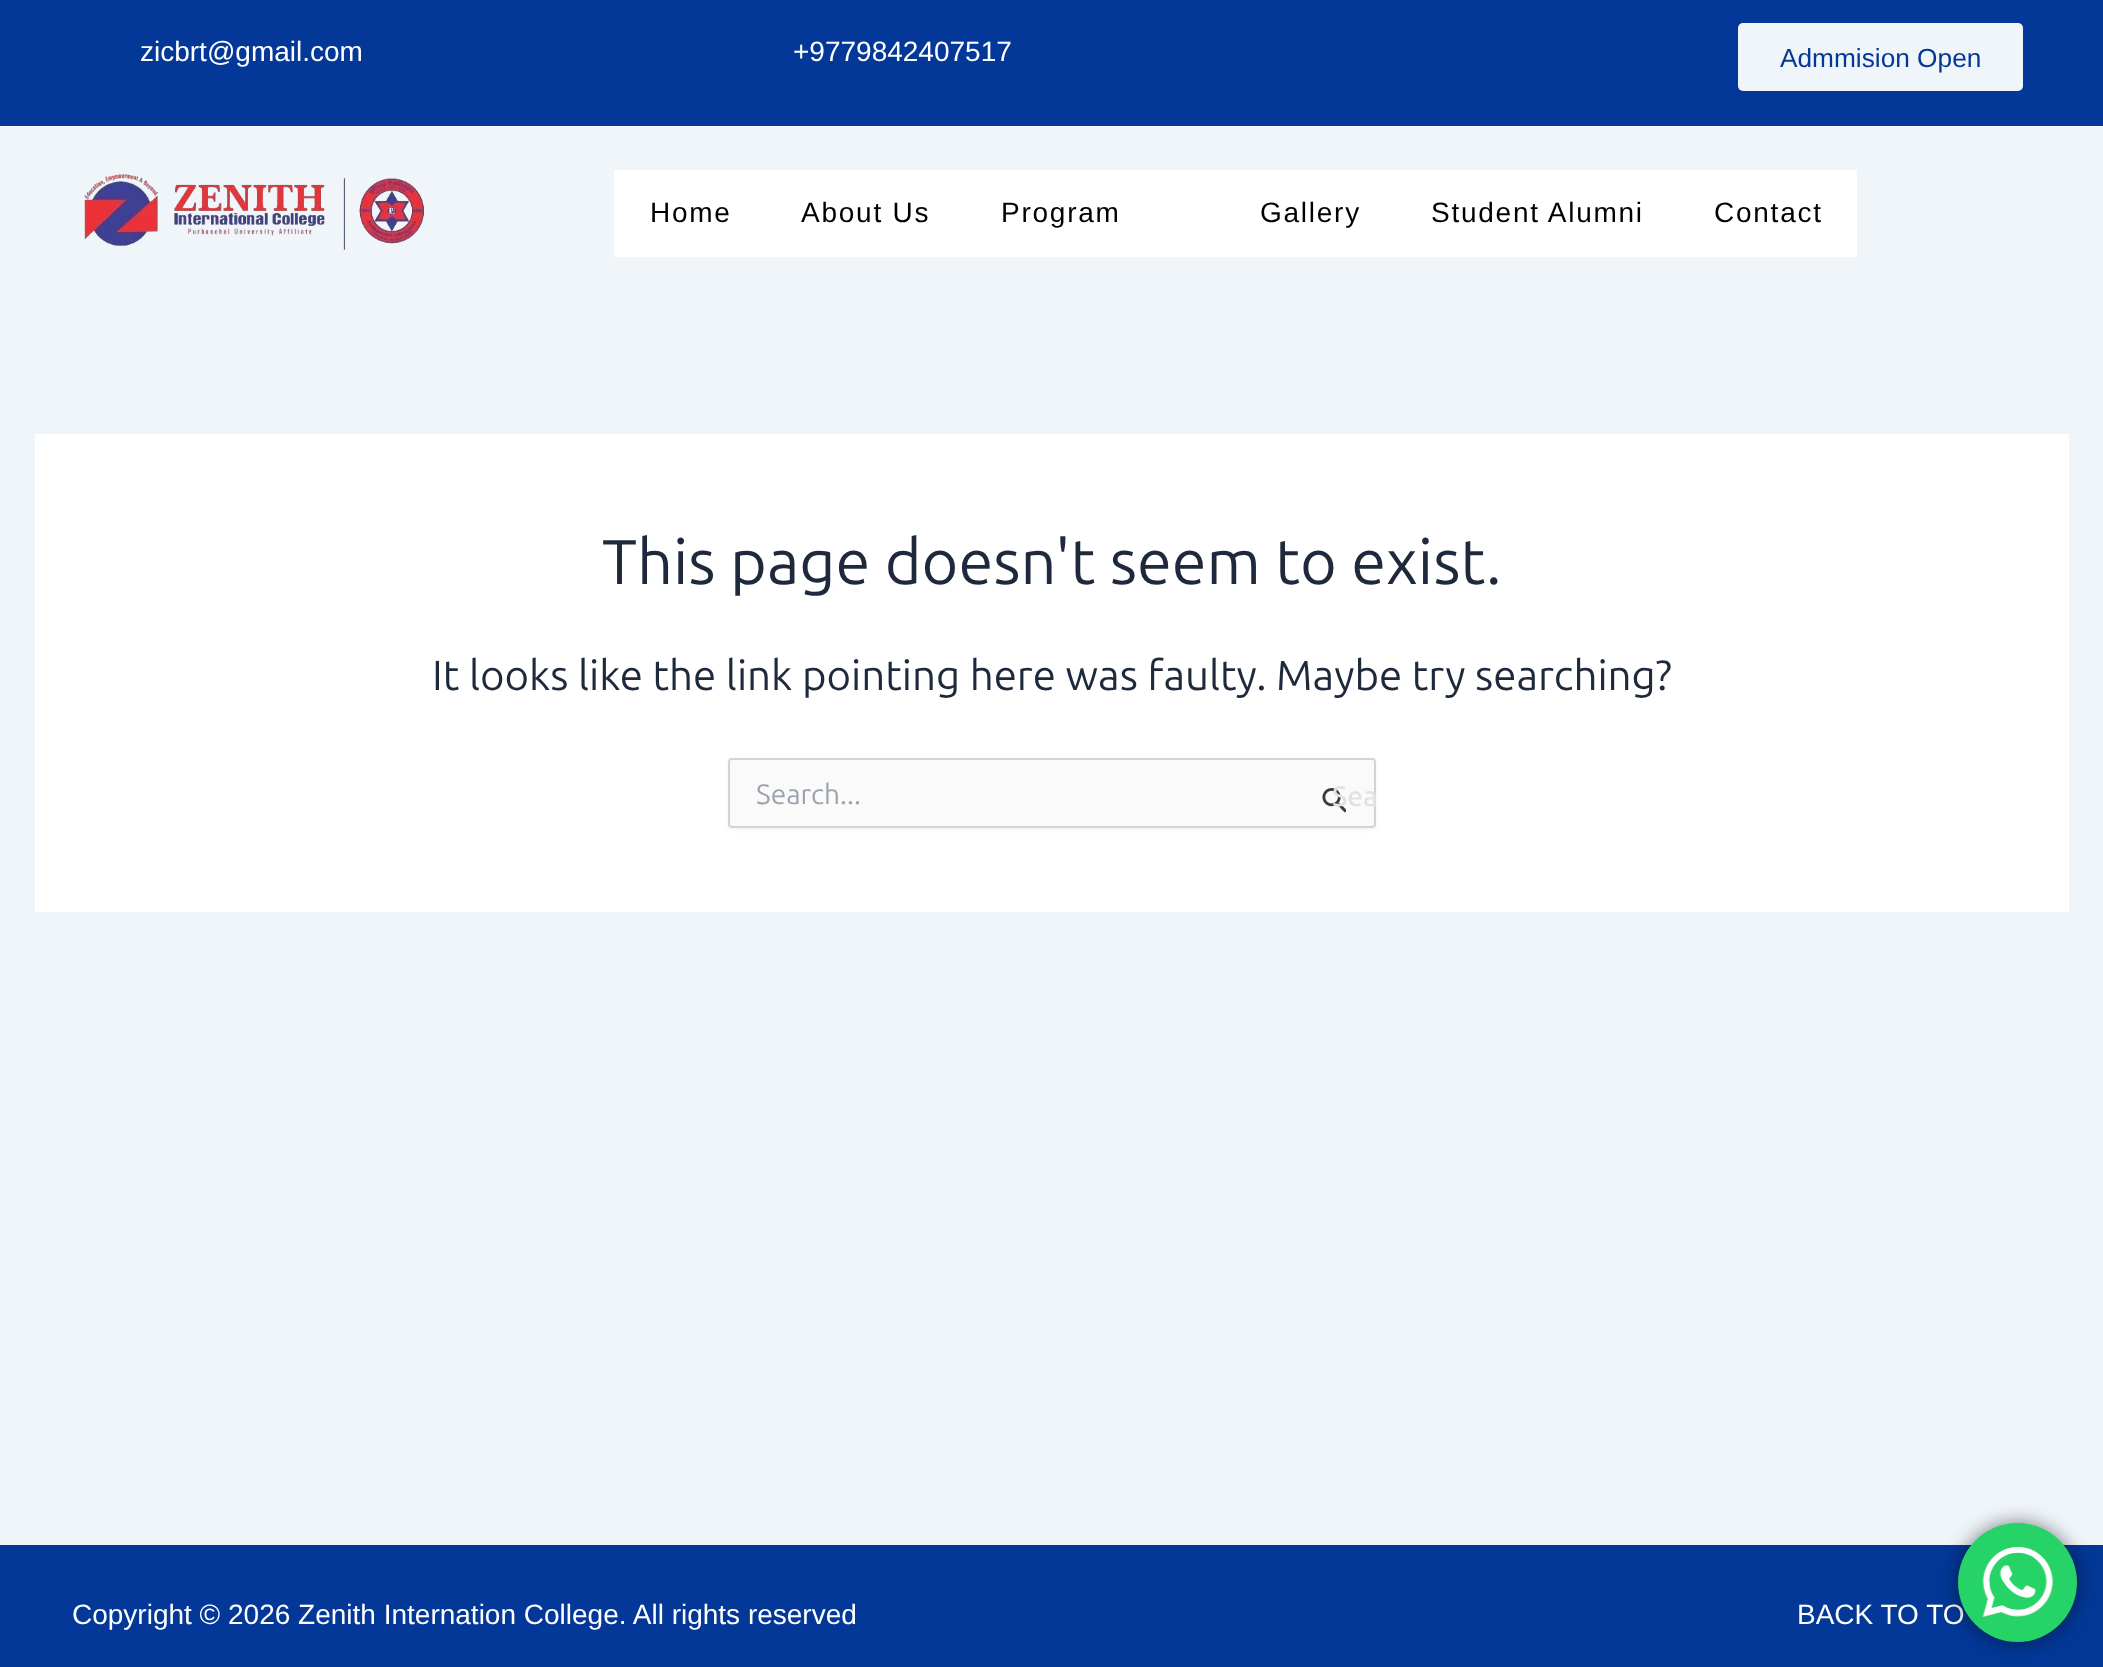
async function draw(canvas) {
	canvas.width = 2103;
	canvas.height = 1667;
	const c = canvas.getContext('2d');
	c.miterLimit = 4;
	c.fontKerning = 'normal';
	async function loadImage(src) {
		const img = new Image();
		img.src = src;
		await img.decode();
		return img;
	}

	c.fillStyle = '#f0f5fa';
	c.fillRect(0, 0, 2103, 1667);
	c.fillStyle = '#033898';
	c.fillRect(0, 0, 2103, 126);
	c.font = '28px Liberation Sans';
	c.fillStyle = '#fff';
	c.fillText('zicbrt@gmail.com', 140, 61);
	c.fillText('+9779842407517', 793, 61);
	c.fillStyle = '#f0f5fa';
	c.beginPath();
	c.roundRect(1738, 23, 285, 68, 5);
	c.fill();
	c.font = '26.25px Liberation Sans';
	c.fillStyle = '#033898';
	c.fillText('Admmision Open', 1780, 67);
	c.drawImage(await loadImage('img1.png'), 84, 174, 340, 76);
	c.fillStyle = '#fff';
	c.fillRect(614, 170, 1243, 87);
	c.letterSpacing = '1.75px';
	c.font = '28px Liberation Sans';
	c.fillStyle = '#000';
	for (const [text, x, y] of [
		['Home', 650, 222],
		['About Us', 801, 222],
		['Program', 1001, 222],
		['Gallery', 1260, 222],
		['Student Alumni', 1431, 222],
		['Contact', 1714, 222],
	]) {
		c.fillText(text, x, y);
	}
	c.fillStyle = '#fff';
	c.fillRect(35, 434, 2034, 478);
	c.letterSpacing = '0px';
	c.font = '63px Ubuntu';
	c.fillStyle = '#1e293b';
	c.fillText('This page doesn\'t seem to exist.', 602, 584);
	c.font = '42px Ubuntu';
	c.fillText('It looks like the link pointing here was faulty. Maybe try searching?', 432, 690);
	c.fillStyle = '#0000000d';
	c.filter = 'blur(2px)';
	c.beginPath();
	c.roundRect(728, 760, 648, 70, 4);
	c.fill();
	c.filter = 'none';
	c.fillStyle = '#fafafa';
	c.beginPath();
	c.roundRect(729, 759, 646, 68, 3);
	c.fill();
	c.strokeStyle = '#d1d5db';
	c.lineWidth = 2;
	c.stroke();
	c.font = '28px Ubuntu';
	c.fillStyle = '#9ca3af';
	c.fillText('Search...', 756, 804);
	c.drawImage(await loadImage('img2.png'), 1322, 788, 24, 25);
	c.font = '500 28px Ubuntu';
	c.fillStyle = '#e2e2e2';
	c.fillText('Sea', 1332, 806);
	c.fillStyle = '#033898';
	c.fillRect(0, 1545, 2103, 122);
	c.font = '28px Liberation Sans';
	c.fillStyle = '#fff';
	c.fillText('Copyright © 2026 Zenith Internation College. All rights reserved', 72, 1624);
	c.fillText('BACK TO TO', 1797, 1624);
	c.fillStyle = '#00000080';
	c.filter = 'blur(9.5px)';
	c.beginPath();
	c.roundRect(1958, 1523, 119, 119, 59.5);
	c.fill();
	c.filter = 'none';
	c.fillStyle = '#25d366';
	c.beginPath();
	c.arc(2017.5, 1582.5, 59.5, 0, 2 * Math.PI);
	c.fill();
	c.drawImage(await loadImage('img3.png'), 1982, 1547, 71, 70);
}

draw(document.querySelector('canvas'));
